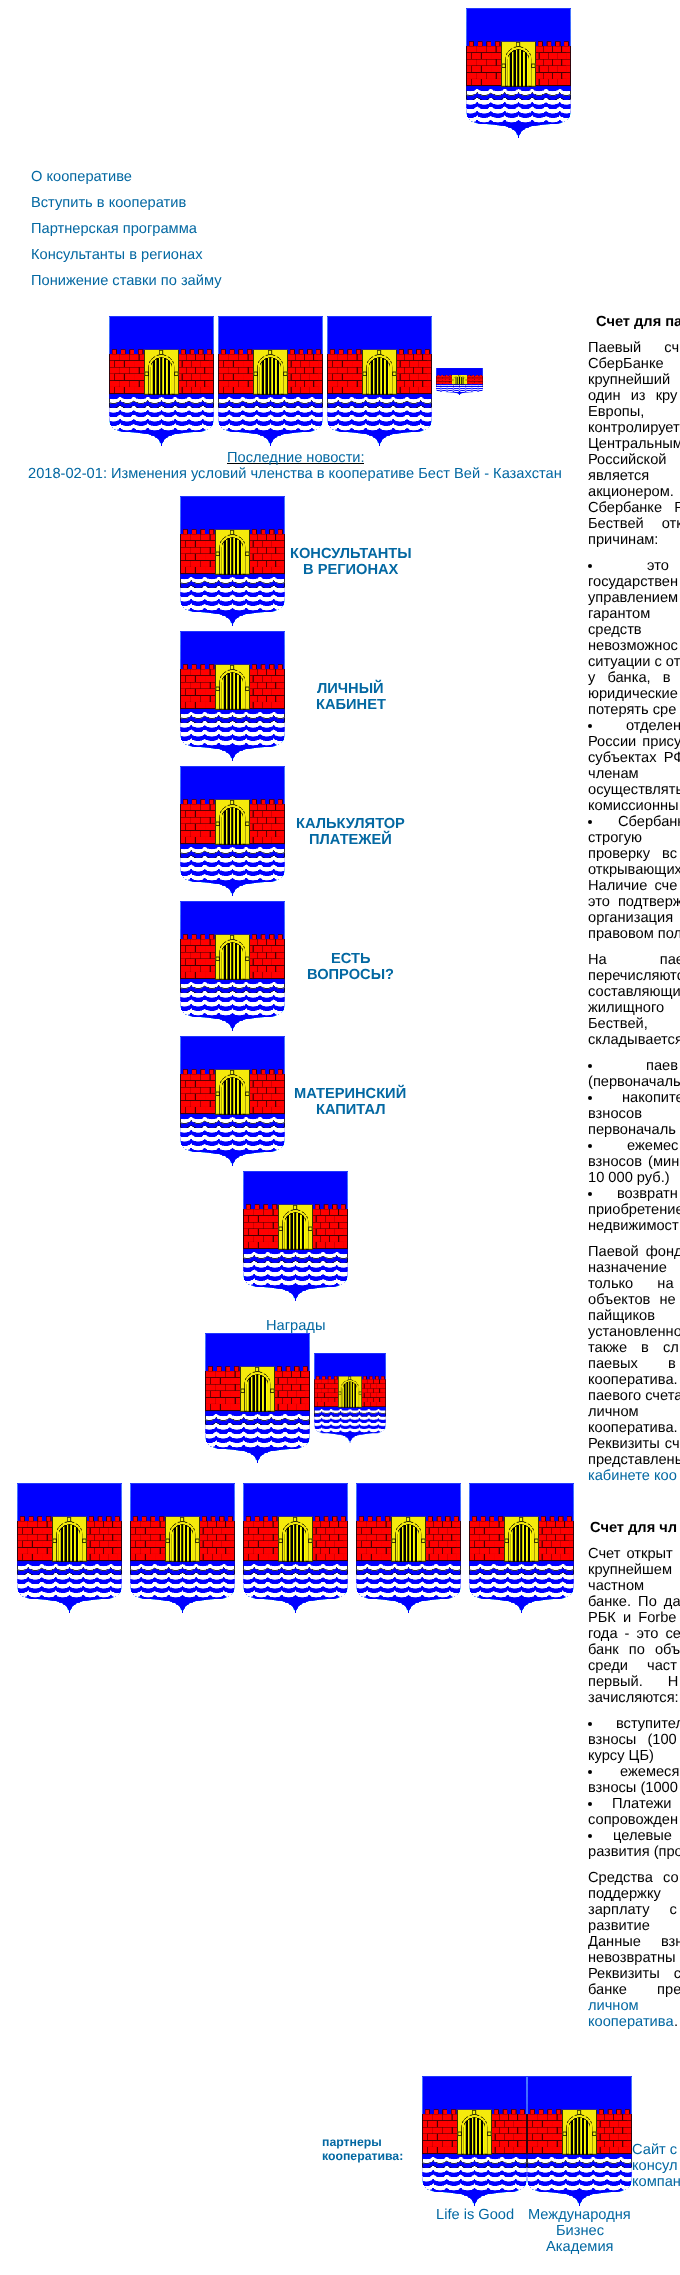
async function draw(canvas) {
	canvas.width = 680;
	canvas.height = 2275;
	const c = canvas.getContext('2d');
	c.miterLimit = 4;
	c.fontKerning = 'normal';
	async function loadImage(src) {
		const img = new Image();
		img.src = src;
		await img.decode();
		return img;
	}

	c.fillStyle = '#fff';
	c.fillRect(0, 0, 680, 2275);
	c.drawImage(await loadImage('img1.png'), 466, 8, 105, 130);
	c.font = '14.65px Liberation Sans';
	c.fillStyle = '#0368a2';
	for (const [text, x, y] of [
		['О кооперативе', 31, 181],
		['Вступить в кооператив', 31, 207],
		['Партнерская программа', 31, 233],
		['Консультанты в регионах', 31, 259],
		['Понижение ставки по займу', 31, 285],
	]) {
		c.fillText(text, x, y);
	}
	c.drawImage(await loadImage('img1.png'), 109, 316, 105, 130);
	c.drawImage(await loadImage('img1.png'), 218, 316, 105, 130);
	c.drawImage(await loadImage('img1.png'), 327, 316, 105, 130);
	c.drawImage(await loadImage('img2.png'), 436, 368, 47, 27);
	c.fillStyle = '#000';
	c.fillRect(227, 463, 137, 1);
	c.fillStyle = '#0368a2';
	c.fillText('Последние новости:', 227, 462);
	c.fillText('2018-02-01: Изменения условий членства в кооперативе Бест Вей - Казахстан', 28, 478);
	c.drawImage(await loadImage('img1.png'), 180, 496, 105, 130);
	c.font = 'bold 14.65px Liberation Sans';
	c.fillText('КОНСУЛЬТАНТЫ', 290, 558);
	c.fillText('В РЕГИОНАХ', 303, 574);
	c.drawImage(await loadImage('img1.png'), 180, 631, 105, 130);
	c.fillText('ЛИЧНЫЙ', 317, 693);
	c.fillText('КАБИНЕТ', 316, 709);
	c.drawImage(await loadImage('img1.png'), 180, 766, 105, 130);
	c.fillText('КАЛЬКУЛЯТОР', 296, 828);
	c.fillText('ПЛАТЕЖЕЙ', 309, 844);
	c.drawImage(await loadImage('img1.png'), 180, 901, 105, 130);
	c.fillText('ЕСТЬ', 331, 963);
	c.fillText('ВОПРОСЫ?', 307, 979);
	c.drawImage(await loadImage('img1.png'), 180, 1036, 105, 130);
	c.fillText('МАТЕРИНСКИЙ', 294, 1098);
	c.fillText('КАПИТАЛ', 316, 1114);
	c.drawImage(await loadImage('img1.png'), 243, 1171, 105, 130);
	c.font = '14.65px Liberation Sans';
	c.fillText('Награды', 266, 1330);
	c.drawImage(await loadImage('img1.png'), 205, 1333, 105, 130);
	c.drawImage(await loadImage('img3.png'), 314, 1353, 72, 90);
	c.drawImage(await loadImage('img1.png'), 17, 1483, 105, 130);
	c.drawImage(await loadImage('img1.png'), 130, 1483, 105, 130);
	c.drawImage(await loadImage('img1.png'), 243, 1483, 105, 130);
	c.drawImage(await loadImage('img1.png'), 356, 1483, 105, 130);
	c.drawImage(await loadImage('img1.png'), 469, 1483, 105, 130);
	c.font = 'bold 14.65px Liberation Sans';
	c.fillStyle = '#000';
	c.fillText('Счет для па', 596, 326);
	c.wordSpacing = '19px';
	c.font = '14.65px Liberation Sans';
	c.fillText('Паевый сч', 588, 352);
	c.wordSpacing = '14px';
	c.fillText('СберБанке', 588, 368);
	c.wordSpacing = '8px';
	c.fillText('крупнейший', 588, 384);
	c.wordSpacing = '6px';
	c.fillText('один из кру', 588, 400);
	c.wordSpacing = '0px';
	c.fillText('Европы,', 588, 416);
	c.fillText('контролирует', 588, 432);
	c.wordSpacing = '57px';
	c.fillText('Центральным', 588, 448);
	c.wordSpacing = '17px';
	c.fillText('Российской', 588, 464);
	c.wordSpacing = '28px';
	c.fillText('является', 588, 480);
	c.wordSpacing = '35px';
	c.fillText('акционером.', 588, 496);
	c.wordSpacing = '8px';
	c.fillText('Сбербанке Р', 588, 512);
	c.wordSpacing = '14px';
	c.fillText('Бествей отк', 588, 528);
	c.wordSpacing = '0px';
	c.fillText('причинам:', 588, 544);
	c.beginPath();
	c.arc(590, 566, 2, 0, 2 * Math.PI);
	c.fill();
	c.wordSpacing = '39px';
	c.fillText('это', 647, 570);
	c.wordSpacing = '0px';
	c.fillText('государствен', 588, 586);
	c.wordSpacing = '9px';
	c.fillText('управлением', 588, 602);
	c.wordSpacing = '53px';
	c.fillText('гарантом', 588, 618);
	c.wordSpacing = '34px';
	c.fillText('средств', 588, 634);
	c.wordSpacing = '33px';
	c.fillText('невозможнос', 588, 650);
	c.wordSpacing = '0px';
	c.fillText('ситуации с от', 588, 666);
	c.wordSpacing = '8px';
	c.fillText('у банка, в', 588, 682);
	c.wordSpacing = '18px';
	c.fillText('юридические', 588, 698);
	c.wordSpacing = '0px';
	c.fillText('потерять сре', 588, 714);
	c.beginPath();
	c.arc(590, 726, 2, 0, 2 * Math.PI);
	c.fill();
	c.wordSpacing = '18px';
	c.fillText('отделен', 626, 730);
	c.wordSpacing = '2px';
	c.fillText('России прису', 588, 746);
	c.wordSpacing = '3px';
	c.fillText('субъектах РФ', 588, 762);
	c.wordSpacing = '64px';
	c.fillText('членам', 588, 778);
	c.wordSpacing = '11px';
	c.fillText('осуществлять', 588, 794);
	c.wordSpacing = '0px';
	c.fillText('комиссионны', 588, 810);
	c.beginPath();
	c.arc(590, 822, 2, 0, 2 * Math.PI);
	c.fill();
	c.wordSpacing = '10px';
	c.fillText('Сбербанк', 618, 826);
	c.wordSpacing = '57px';
	c.fillText('строгую', 588, 842);
	c.wordSpacing = '8px';
	c.fillText('проверку вс', 588, 858);
	c.wordSpacing = '4px';
	c.fillText('открывающих', 588, 874);
	c.wordSpacing = '3px';
	c.fillText('Наличие сче', 588, 890);
	c.wordSpacing = '4px';
	c.fillText('это подтверж', 588, 906);
	c.wordSpacing = '21px';
	c.fillText('организация', 588, 922);
	c.wordSpacing = '0px';
	c.fillText('правовом пол', 588, 938);
	c.wordSpacing = '49px';
	c.fillText('На пае', 588, 964);
	c.wordSpacing = '11px';
	c.fillText('перечисляютс', 588, 980);
	c.wordSpacing = '5px';
	c.fillText('составляющи', 588, 996);
	c.wordSpacing = '39px';
	c.fillText('жилищного', 588, 1012);
	c.wordSpacing = '85px';
	c.fillText('Бествей,', 588, 1028);
	c.wordSpacing = '0px';
	c.fillText('складывается', 588, 1044);
	c.beginPath();
	c.arc(590, 1066, 2, 0, 2 * Math.PI);
	c.fill();
	c.wordSpacing = '39px';
	c.fillText('паев', 646, 1070);
	c.wordSpacing = '0px';
	c.fillText('(первоначаль', 588, 1086);
	c.beginPath();
	c.arc(590, 1098, 2, 0, 2 * Math.PI);
	c.fill();
	c.wordSpacing = '14px';
	c.fillText('накопите', 622, 1102);
	c.wordSpacing = '62px';
	c.fillText('взносов', 588, 1118);
	c.wordSpacing = '0px';
	c.fillText('первоначаль', 588, 1134);
	c.beginPath();
	c.arc(590, 1146, 2, 0, 2 * Math.PI);
	c.fill();
	c.wordSpacing = '19px';
	c.fillText('ежемес', 627, 1150);
	c.wordSpacing = '2px';
	c.fillText('взносов (мин', 588, 1166);
	c.wordSpacing = '0px';
	c.fillText('10 000 руб.)', 588, 1182);
	c.beginPath();
	c.arc(590, 1194, 2, 0, 2 * Math.PI);
	c.fill();
	c.wordSpacing = '9px';
	c.fillText('возвратн', 617, 1198);
	c.wordSpacing = '43px';
	c.fillText('приобретение', 588, 1214);
	c.wordSpacing = '0px';
	c.fillText('недвижимост', 588, 1230);
	c.wordSpacing = '3px';
	c.fillText('Паевой фонд', 588, 1256);
	c.wordSpacing = '13px';
	c.fillText('назначение', 588, 1272);
	c.wordSpacing = '20px';
	c.fillText('только на', 588, 1288);
	c.wordSpacing = '5px';
	c.fillText('объектов не', 588, 1304);
	c.wordSpacing = '33px';
	c.fillText('пайщиков', 588, 1320);
	c.wordSpacing = '13px';
	c.fillText('установленно', 588, 1336);
	c.wordSpacing = '10px';
	c.fillText('также в сл', 588, 1352);
	c.wordSpacing = '26px';
	c.fillText('паевых в', 588, 1368);
	c.wordSpacing = '38px';
	c.fillText('кооператива.', 588, 1384);
	c.wordSpacing = '0px';
	c.fillText('паевого счета', 588, 1400);
	c.wordSpacing = '88px';
	c.fillText('личном', 588, 1416);
	c.wordSpacing = '0px';
	c.fillText('кооператива.', 588, 1432);
	c.wordSpacing = '1px';
	c.fillText('Реквизиты сч', 588, 1448);
	c.wordSpacing = '20px';
	c.fillText('представлены', 588, 1464);
	c.wordSpacing = '0px';
	c.fillStyle = '#0368a2';
	c.fillText('кабинете коо', 588, 1480);
	c.font = 'bold 14.65px Liberation Sans';
	c.fillStyle = '#000';
	c.fillText('Счет для чл', 590, 1532);
	c.wordSpacing = '2px';
	c.font = '14.65px Liberation Sans';
	c.fillText('Счет открыт', 588, 1558);
	c.wordSpacing = '37px';
	c.fillText('крупнейшем', 588, 1574);
	c.wordSpacing = '46px';
	c.fillText('частном', 588, 1590);
	c.wordSpacing = '3px';
	for (const [text, x, y] of [
		['банке. По да', 588, 1606],
		['РБК и Forbe', 588, 1622],
		['года - это се', 588, 1638],
	]) {
		c.fillText(text, x, y);
	}
	c.wordSpacing = '6px';
	c.fillText('банк по объ', 588, 1654);
	c.wordSpacing = '15px';
	c.fillText('среди част', 588, 1670);
	c.wordSpacing = '21px';
	c.fillText('первый. Н', 588, 1686);
	c.wordSpacing = '0px';
	c.fillText('зачисляются:', 588, 1702);
	c.beginPath();
	c.arc(590, 1724, 2, 0, 2 * Math.PI);
	c.fill();
	c.wordSpacing = '8px';
	c.fillText('вступител', 616, 1728);
	c.wordSpacing = '7px';
	c.fillText('взносы (100', 588, 1744);
	c.wordSpacing = '0px';
	c.fillText('курсу ЦБ)', 588, 1760);
	c.beginPath();
	c.arc(590, 1772, 2, 0, 2 * Math.PI);
	c.fill();
	c.wordSpacing = '12px';
	c.fillText('ежемеся', 620, 1776);
	c.wordSpacing = '0px';
	c.fillText('взносы (1000', 588, 1792);
	c.beginPath();
	c.arc(590, 1804, 2, 0, 2 * Math.PI);
	c.fill();
	c.wordSpacing = '4px';
	c.fillText('Платежи', 612, 1808);
	c.wordSpacing = '0px';
	c.fillText('сопровожден', 588, 1824);
	c.beginPath();
	c.arc(590, 1836, 2, 0, 2 * Math.PI);
	c.fill();
	c.wordSpacing = '5px';
	c.fillText('целевые', 613, 1840);
	c.wordSpacing = '0px';
	c.fillText('развития (про', 588, 1856);
	c.wordSpacing = '6px';
	c.fillText('Средства со', 588, 1882);
	c.wordSpacing = '13px';
	c.fillText('поддержку', 588, 1898);
	c.wordSpacing = '16px';
	c.fillText('зарплату с', 588, 1914);
	c.wordSpacing = '49px';
	c.fillText('развитие', 588, 1930);
	c.wordSpacing = '16px';
	c.fillText('Данные взн', 588, 1946);
	c.wordSpacing = '0px';
	c.fillText('невозвратны', 588, 1962);
	c.wordSpacing = '10px';
	c.fillText('Реквизиты с', 588, 1978);
	c.wordSpacing = '26px';
	c.fillText('банке пре', 588, 1994);
	c.wordSpacing = '88px';
	c.fillStyle = '#0368a2';
	c.fillText('личном', 588, 2010);
	c.wordSpacing = '0px';
	c.fillText('кооператива', 588, 2026);
	c.fillStyle = '#000';
	c.fillText('.', 674, 2026);
	c.font = 'bold 12.25px Liberation Sans';
	c.fillStyle = '#0368a2';
	c.fillText('партнеры', 322, 2146);
	c.fillText('кооператива:', 322, 2160);
	c.font = '14.65px Liberation Sans';
	for (const [text, x, y] of [
		['Сайт с', 632, 2154],
		['консул', 632, 2170],
		['компан', 632, 2186],
	]) {
		c.fillText(text, x, y);
	}
	c.drawImage(await loadImage('img1.png'), 422, 2076, 105, 130);
	c.fillText('Life is Good', 436, 2219);
	c.drawImage(await loadImage('img1.png'), 527, 2076, 105, 130);
	for (const [text, x, y] of [
		['Международня', 528, 2219],
		['Бизнес', 556, 2235],
		['Академия', 546, 2251],
	]) {
		c.fillText(text, x, y);
	}
}

draw(document.querySelector('canvas'));
